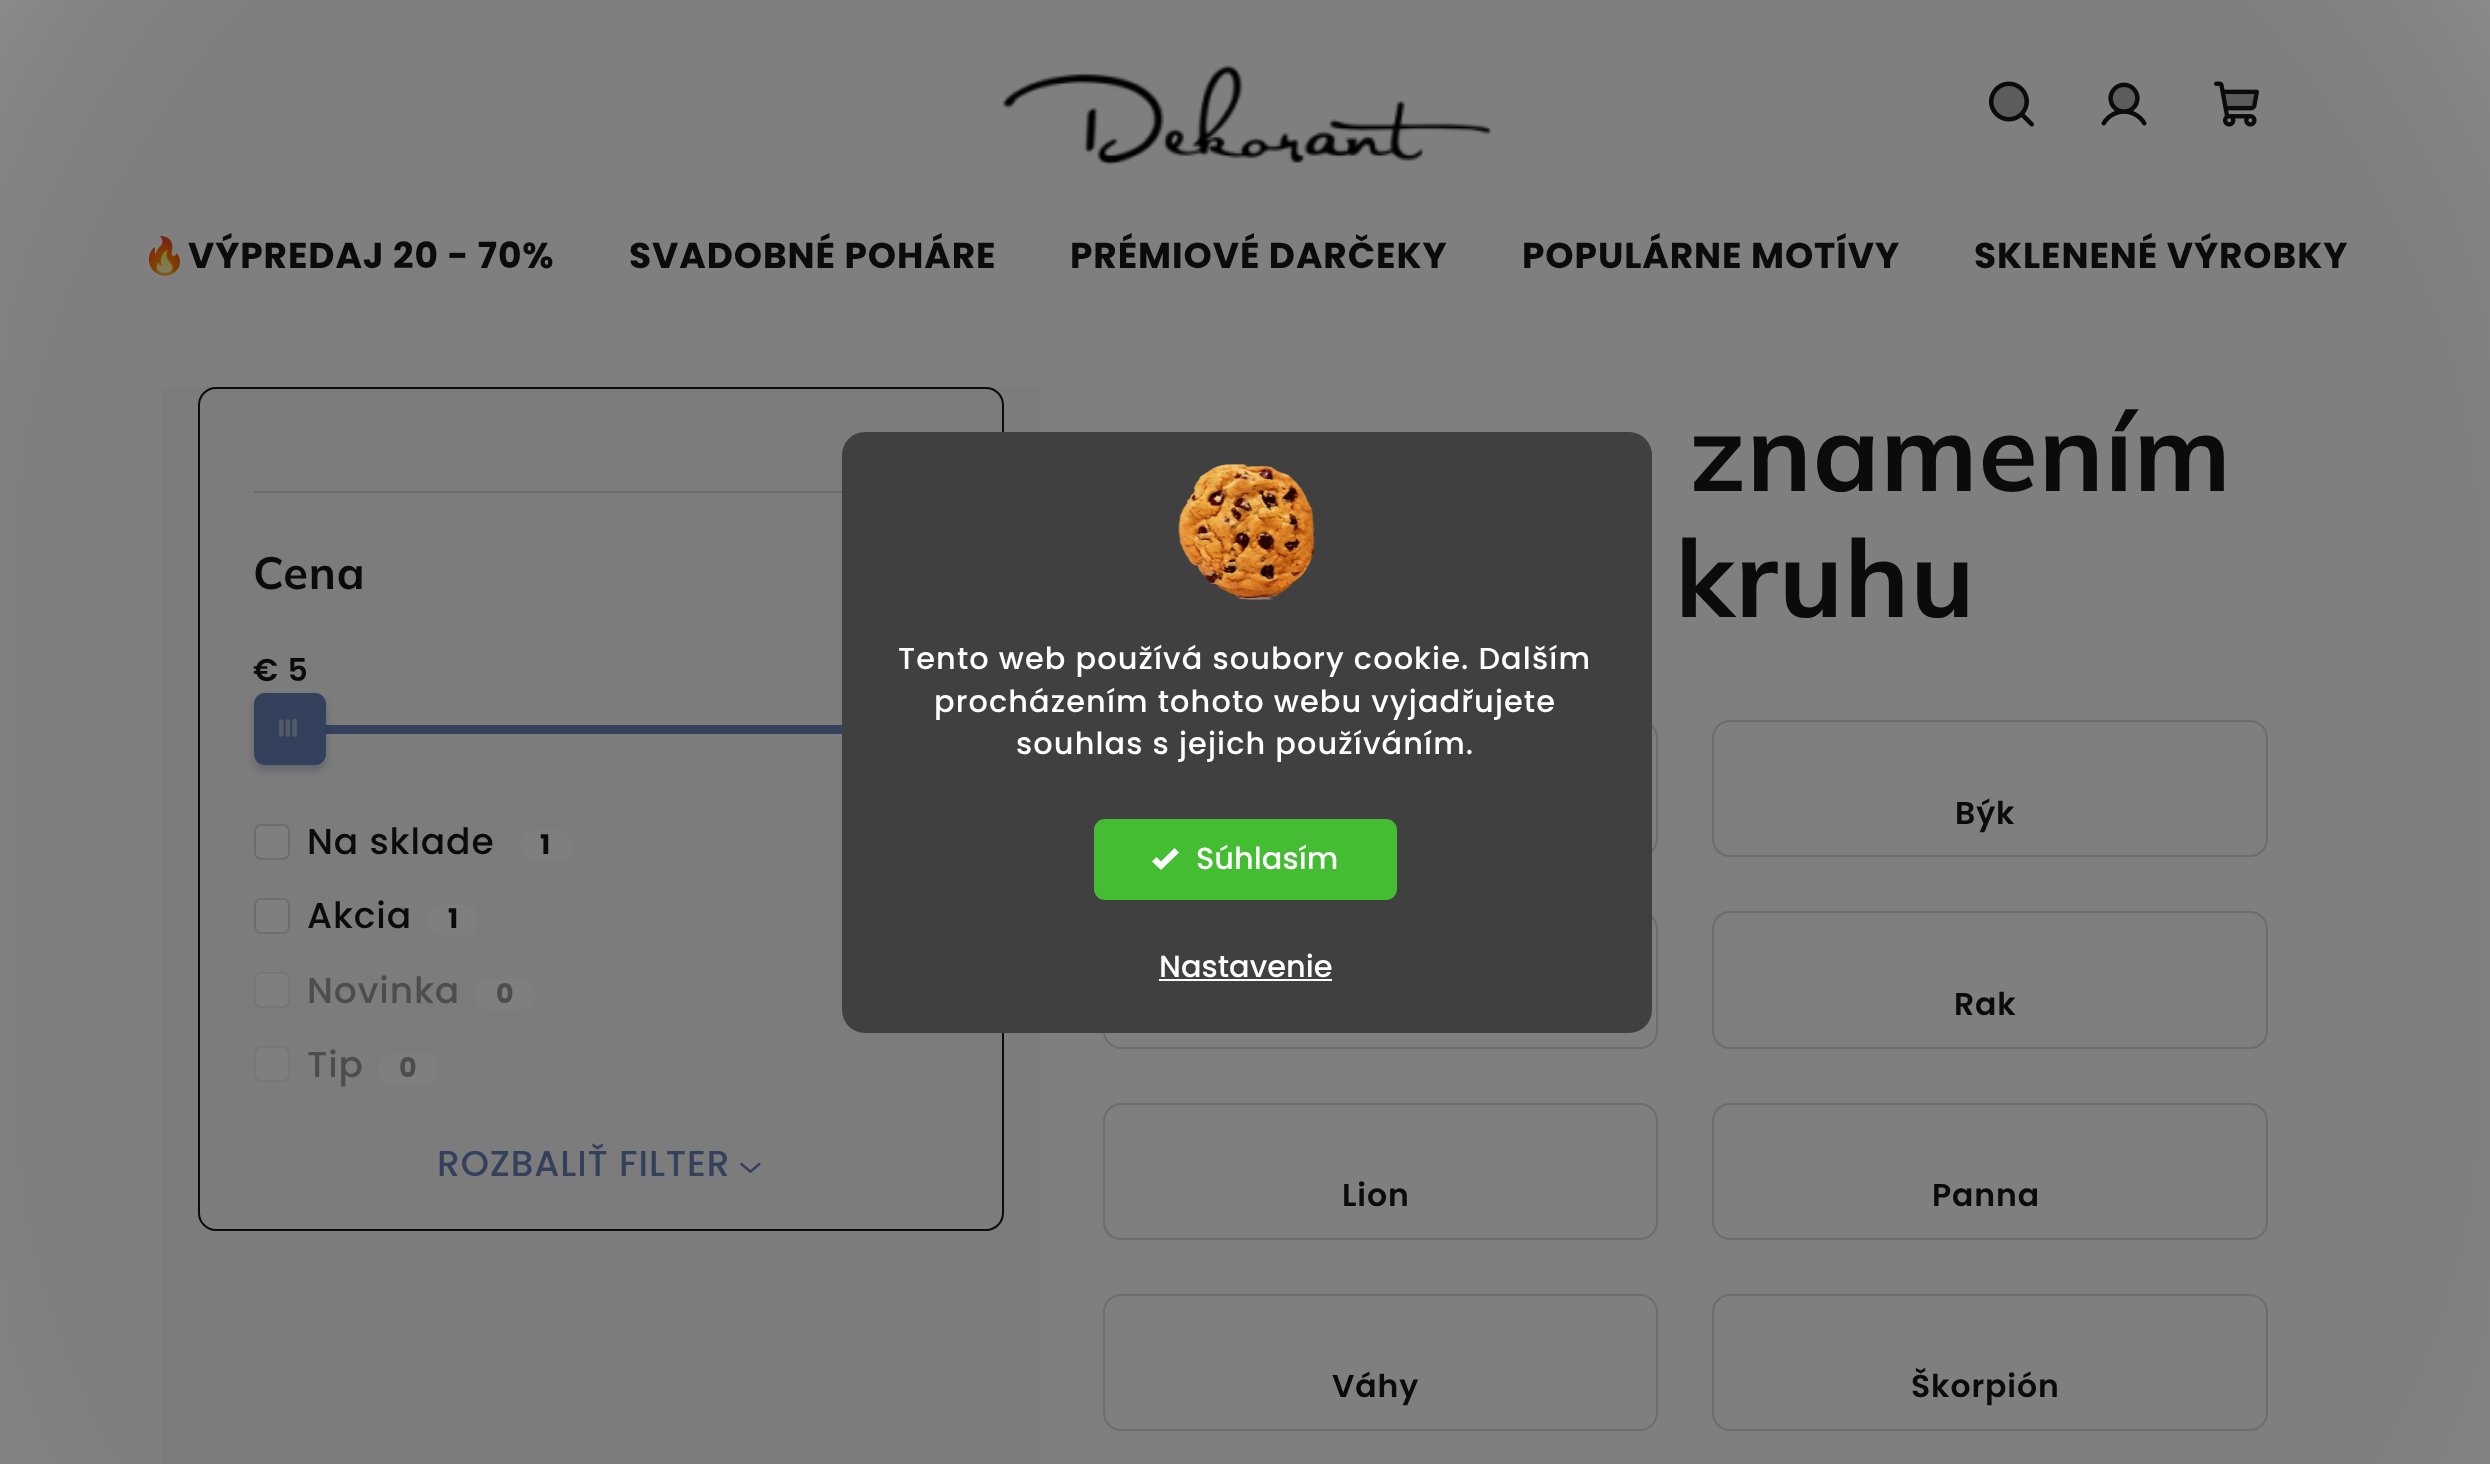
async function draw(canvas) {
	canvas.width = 2490;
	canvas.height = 1464;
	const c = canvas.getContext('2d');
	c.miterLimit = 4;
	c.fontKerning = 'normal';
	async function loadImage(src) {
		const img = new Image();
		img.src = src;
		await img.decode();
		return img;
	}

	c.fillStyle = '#fff';
	c.fillRect(0, 0, 2490, 1464);
	c.drawImage(await loadImage('img1.png'), 1003, 65, 489, 100);
	c.drawImage(await loadImage('img2.png'), 1989, 81, 45, 46);
	c.fillStyle = '#1616164d';
	c.beginPath();
	c.moveTo(2009, 119.5);
	c.bezierCurveTo(2026, 119.5, 2033, 97.5, 2019.5, 87.5);
	c.bezierCurveTo(2016.5, 85, 2013, 84, 2009, 84);
	c.bezierCurveTo(2005, 84, 2001.5, 85, 1998.5, 87.5);
	c.bezierCurveTo(1985, 97.5, 1992, 119.5, 2009, 119.5);
	c.closePath();
	c.fill();
	c.drawImage(await loadImage('img3.png'), 2101, 82, 46, 44);
	c.beginPath();
	c.moveTo(2124, 111.5);
	c.bezierCurveTo(2141.5, 111.5, 2141.5, 85, 2124, 85);
	c.bezierCurveTo(2106.5, 85, 2106.5, 111.5, 2124, 111.5);
	c.closePath();
	c.fill();
	c.drawImage(await loadImage('img4.png'), 2214, 81, 45, 46);
	c.beginPath();
	c.moveTo(2225.5, 108);
	c.lineTo(2247, 108);
	c.bezierCurveTo(2252.5, 108, 2253.5, 109, 2255, 103);
	c.lineTo(2257, 92);
	c.lineTo(2222.5, 92);
	c.closePath();
	c.fill();
	c.letterSpacing = '0.9px';
	c.font = 'bold 36px Noto Color Emoji';
	c.fillStyle = '#161616';
	c.fillText('🔥', 142, 268);
	c.font = 'bold 36px Poppins';
	for (const [text, x, y] of [
		['VÝPREDAJ 20 - 70%', 188, 268],
		['SVADOBNÉ POHÁRE', 629, 268],
		['PRÉMIOVÉ DARČEKY', 1070, 268],
		['POPULÁRNE MOTÍVY', 1522, 268],
		['SKLENENÉ VÝROBKY', 1974, 268],
	]) {
		c.fillText(text, x, y);
	}
	c.fillStyle = '#f9f9f9';
	c.fillRect(162, 387, 878, 1077);
	c.beginPath();
	c.roundRect(199, 388, 804, 842, 17);
	c.strokeStyle = '#161616';
	c.lineWidth = 2;
	c.stroke();
	c.fillStyle = '#dadada';
	c.fillRect(254, 491, 588, 2);
	c.font = 'bold 45px Mulish';
	c.fillStyle = '#161616';
	c.fillText('Cena', 253, 589);
	c.font = '600 31.5px Poppins';
	c.fillText('€ 5', 253, 681);
	c.fillStyle = '#6883ba';
	c.fillRect(326, 725, 516, 9);
	c.fillStyle = '#172f6f3d';
	c.filter = 'blur(4.5px)';
	c.beginPath();
	c.roundRect(254, 698, 72, 72, 11);
	c.fill();
	c.filter = 'none';
	c.fillStyle = '#6883ba';
	c.beginPath();
	c.roundRect(254, 693, 72, 72, 11);
	c.fill();
	c.drawImage(await loadImage('img5.png'), 279, 718, 18, 19);
	c.fillStyle = '#fff';
	c.beginPath();
	c.roundRect(255, 825, 34, 34, 6);
	c.fill();
	c.strokeStyle = '#dadada';
	c.stroke();
	c.font = '500 36px Poppins';
	c.fillStyle = '#161616';
	c.fillText('Na sklade', 307, 854);
	c.fillStyle = '#fff';
	c.beginPath();
	c.roundRect(520, 830, 52, 32, 16);
	c.fill();
	c.font = 'bold 27px Poppins';
	c.fillStyle = '#161616';
	c.fillText('1', 540, 854);
	c.fillStyle = '#fff';
	c.beginPath();
	c.roundRect(255, 899, 34, 34, 6);
	c.fill();
	c.stroke();
	c.font = '500 36px Poppins';
	c.fillStyle = '#161616';
	c.fillText('Akcia', 307, 928);
	c.fillStyle = '#fff';
	c.beginPath();
	c.roundRect(428, 905, 51, 31, 15.5);
	c.fill();
	c.font = 'bold 27px Poppins';
	c.fillStyle = '#161616';
	c.fillText('1', 448, 928);
	c.fillStyle = '#fefefe';
	c.beginPath();
	c.roundRect(255, 973, 34, 34, 6);
	c.fill();
	c.strokeStyle = '#ececec';
	c.stroke();
	c.font = '500 36px Poppins';
	c.fillStyle = '#9a9a9a';
	c.fillText('Novinka', 307, 1003);
	c.fillStyle = '#fefefe';
	c.beginPath();
	c.roundRect(475, 979, 61, 31, 15.5);
	c.fill();
	c.font = 'bold 27px Poppins';
	c.fillStyle = '#9a9a9a';
	c.fillText('0', 496, 1003);
	c.fillStyle = '#fefefe';
	c.beginPath();
	c.roundRect(255, 1047, 34, 34, 6);
	c.fill();
	c.stroke();
	c.font = '500 36px Poppins';
	c.fillStyle = '#9a9a9a';
	c.fillText('Tip', 307, 1077);
	c.fillStyle = '#fefefe';
	c.beginPath();
	c.roundRect(378, 1053, 61, 32, 16);
	c.fill();
	c.font = 'bold 27px Poppins';
	c.fillStyle = '#9a9a9a';
	c.fillText('0', 399, 1077);
	c.font = '500 36px Poppins';
	c.fillStyle = '#6883ba';
	c.fillText('ROZBALIŤ FILTER', 437, 1176);
	c.drawImage(await loadImage('img6.png'), 740, 1162, 21, 11);
	c.font = 'bold 108px Mulish';
	c.fillStyle = '#161616';
	c.fillText('znamením', 1689, 491);
	c.fillText('kruhu', 1675, 617);
	c.beginPath();
	c.roundRect(1104, 721, 553, 135, 17);
	c.strokeStyle = '#dadada';
	c.stroke();
	c.beginPath();
	c.roundRect(1713, 721, 554, 135, 17);
	c.stroke();
	c.font = '600 31.5px Poppins';
	c.fillText('Býk', 1955, 824);
	c.beginPath();
	c.roundRect(1104, 912, 553, 136, 17);
	c.stroke();
	c.beginPath();
	c.roundRect(1713, 912, 554, 136, 17);
	c.stroke();
	c.fillText('Rak', 1954, 1015);
	c.beginPath();
	c.roundRect(1104, 1104, 553, 135, 17);
	c.stroke();
	c.fillText('Lion', 1342, 1206);
	c.beginPath();
	c.roundRect(1713, 1104, 554, 135, 17);
	c.stroke();
	c.fillText('Panna', 1932, 1206);
	c.beginPath();
	c.roundRect(1104, 1295, 553, 135, 17);
	c.stroke();
	c.fillText('Váhy', 1332, 1397);
	c.beginPath();
	c.roundRect(1713, 1295, 554, 135, 17);
	c.stroke();
	c.fillText('Škorpión', 1911, 1397);
	c.fillStyle = '#00000080';
	c.filter = 'blur(180px)';
	c.beginPath();
	c.roundRect(-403, -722, 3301, 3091, 1269);
	c.fill();
	c.filter = 'none';
	c.fillStyle = '#404040';
	c.beginPath();
	c.roundRect(842, 432, 810, 601, 23);
	c.fill();
	c.drawImage(await loadImage('img7.png'), 1178, 464, 137, 136);
	c.letterSpacing = '1.1px';
	c.font = '500 30.4px Poppins';
	c.fillStyle = '#fff';
	for (const [text, x, y] of [
		['Tento web používá soubory cookie. Dalším', 898, 669],
		['procházením tohoto webu vyjadřujete', 934, 712],
		['souhlas s jejich používáním.', 1016, 754],
	]) {
		c.fillText(text, x, y);
	}
	c.fillStyle = '#44bd32';
	c.beginPath();
	c.roundRect(1095, 820, 301, 79, 10);
	c.fill();
	c.strokeStyle = '#44bd32';
	c.stroke();
	c.fillStyle = '#fff';
	c.beginPath();
	c.moveTo(1174.5, 848);
	c.lineTo(1161, 861.5);
	c.lineTo(1156.5, 857);
	c.lineTo(1152, 861.5);
	c.lineTo(1161, 870);
	c.lineTo(1179, 852.5);
	c.closePath();
	c.fill();
	c.letterSpacing = '0px';
	c.fillText('Súhlasím', 1196, 869);
	c.fillText('Nastavenie', 1159, 977);
	c.fillRect(1159, 979, 173, 2);
}

draw(document.querySelector('canvas'));
